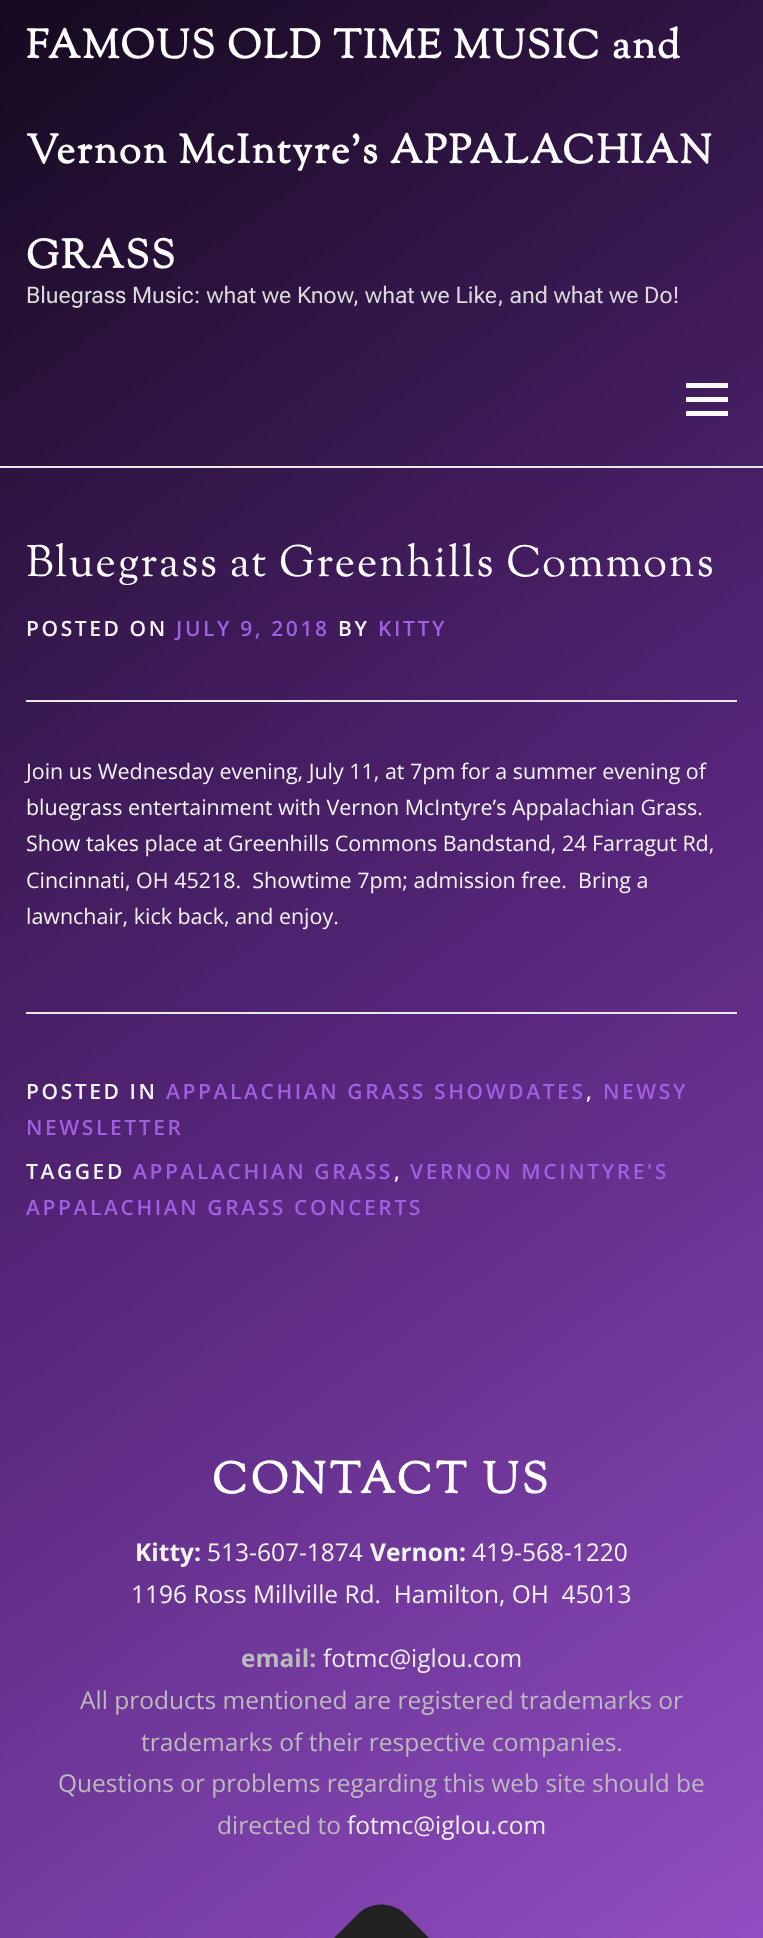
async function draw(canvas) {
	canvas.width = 763;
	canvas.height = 1938;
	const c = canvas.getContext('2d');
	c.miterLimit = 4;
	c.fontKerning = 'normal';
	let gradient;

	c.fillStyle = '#fff';
	c.fillRect(0, 0, 763, 1938);
	gradient = c.createLinearGradient(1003, 1879, -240, 169);
	gradient.addColorStop(0, '#9752ca');
	gradient.addColorStop(0.5, '#552579');
	gradient.addColorStop(1, '#15091e');
	c.fillStyle = gradient;
	c.fillRect(0, 0, 763, 1938);
	c.letterSpacing = '1.75px';
	c.font = 'bold 40.25px Sorts Mill Goudy';
	c.fillStyle = '#fff';
	for (const [text, x, y] of [
		['FAMOUS OLD TIME MUSIC and', 26, 58],
		['Vernon McIntyre’s APPALACHIAN', 26, 163],
		['GRASS', 26, 268],
	]) {
		c.fillText(text, x, y);
	}
	c.letterSpacing = '0px';
	c.font = '23px Roboto Flex';
	c.fillStyle = '#dbdbdb';
	c.fillText('Bluegrass Music: what we Know, what we Like, and what we Do!', 26, 303);
	for (const [x, y, w, h, color] of [
		[686, 397, 42, 5, '#f9f9f9'],
		[686, 383, 42, 5, '#f9f9f9'],
		[686, 411, 42, 5, '#f9f9f9'],
		[0, 466, 763, 2, '#e9e9e9'],
	]) {
		c.fillStyle = color;
		c.fillRect(x, y, w, h);
	}
	c.letterSpacing = '1.75px';
	c.font = '43.75px Sorts Mill Goudy';
	c.fillStyle = '#fff';
	c.fillText('Bluegrass at Greenhills Commons', 26, 576);
	c.fillStyle = '#e9e9e9';
	c.fillRect(26, 700, 711, 2);
	c.letterSpacing = '2.6px';
	c.font = '600 21px Open Sans';
	c.fillStyle = '#f4f4f4';
	c.fillText('POSTED ON', 26, 636);
	c.fillStyle = '#a15fe2';
	c.fillText('JULY 9, 2018', 176, 636);
	c.fillStyle = '#f4f4f4';
	c.fillText('BY', 338, 636);
	c.fillStyle = '#a15fe2';
	c.fillText('KITTY', 378, 636);
	c.letterSpacing = '0px';
	c.font = '21.45px Open Sans';
	c.fillStyle = '#f4f4f4';
	for (const [text, x, y] of [
		['Join us Wednesday evening, July 11, at 7pm for a summer evening of', 26, 779],
		['bluegrass entertainment with Vernon McIntyre’s Appalachian Grass.', 26, 815],
		['Show takes place at Greenhills Commons Bandstand, 24 Farragut Rd,', 26, 851],
		['Cincinnati, OH 45218.  Showtime 7pm; admission free.  Bring a', 26, 888],
		['lawnchair, kick back, and enjoy.', 26, 924],
	]) {
		c.fillText(text, x, y);
	}
	c.fillStyle = '#e9e9e9';
	c.fillRect(26, 1012, 711, 2);
	c.letterSpacing = '2.6px';
	c.font = '600 21px Open Sans';
	c.fillStyle = '#f4f4f4';
	c.fillText('POSTED IN', 26, 1099);
	c.fillStyle = '#a15fe2';
	c.fillText('APPALACHIAN GRASS SHOWDATES', 166, 1099);
	c.fillStyle = '#f4f4f4';
	c.fillText(',', 586, 1099);
	c.fillStyle = '#a15fe2';
	c.fillText('NEWSY', 603, 1099);
	c.fillText('NEWSLETTER', 26, 1135);
	c.fillStyle = '#f4f4f4';
	c.fillText('TAGGED', 26, 1179);
	c.fillStyle = '#a15fe2';
	c.fillText('APPALACHIAN GRASS', 133, 1179);
	c.fillStyle = '#f4f4f4';
	c.fillText(',', 394, 1179);
	c.fillStyle = '#a15fe2';
	c.fillText('VERNON MCINTYRE\'S', 410, 1179);
	c.fillText('APPALACHIAN GRASS CONCERTS', 26, 1215);
	c.letterSpacing = '3.5px';
	c.font = 'bold 43.75px Sorts Mill Goudy';
	c.fillStyle = '#fff';
	c.fillText('CONTACT US', 212, 1493);
	c.letterSpacing = '0px';
	c.font = 'bold 24.5px Open Sans';
	c.fillStyle = '#f4f4f4';
	c.fillText('Kitty:', 135, 1561);
	c.font = '24.5px Open Sans';
	c.fillText('513-607-1874', 207, 1561);
	c.font = 'bold 24.5px Open Sans';
	c.fillText('Vernon:', 370, 1561);
	c.font = '24.5px Open Sans';
	c.fillText('419-568-1220', 472, 1561);
	c.fillText('1196 Ross Millville Rd.  Hamilton, OH  45013', 131, 1603);
	c.font = 'bold 24.5px Open Sans';
	c.fillStyle = '#bbb';
	c.fillText('email:', 241, 1667);
	c.font = '24.5px Open Sans';
	c.fillStyle = '#ededed';
	c.fillText('fotmc@iglou.com', 323, 1667);
	c.fillStyle = '#bbb';
	for (const [text, x, y] of [
		['All products mentioned are registered trademarks or', 80, 1709],
		['trademarks of their respective companies.', 141, 1751],
		['Questions or problems regarding this web site should be', 58, 1792],
		['directed to', 217, 1834],
	]) {
		c.fillText(text, x, y);
	}
	c.fillStyle = '#ededed';
	c.fillText('fotmc@iglou.com', 347, 1834);
	c.fillStyle = '#222';
	c.beginPath();
	c.moveTo(320, 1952);
	c.lineTo(357, 1915);
	c.bezierCurveTo(370, 1901, 393, 1901, 406, 1915);
	c.lineTo(443, 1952);
	c.lineTo(382, 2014);
	c.closePath();
	c.fill();
}

draw(document.querySelector('canvas'));
